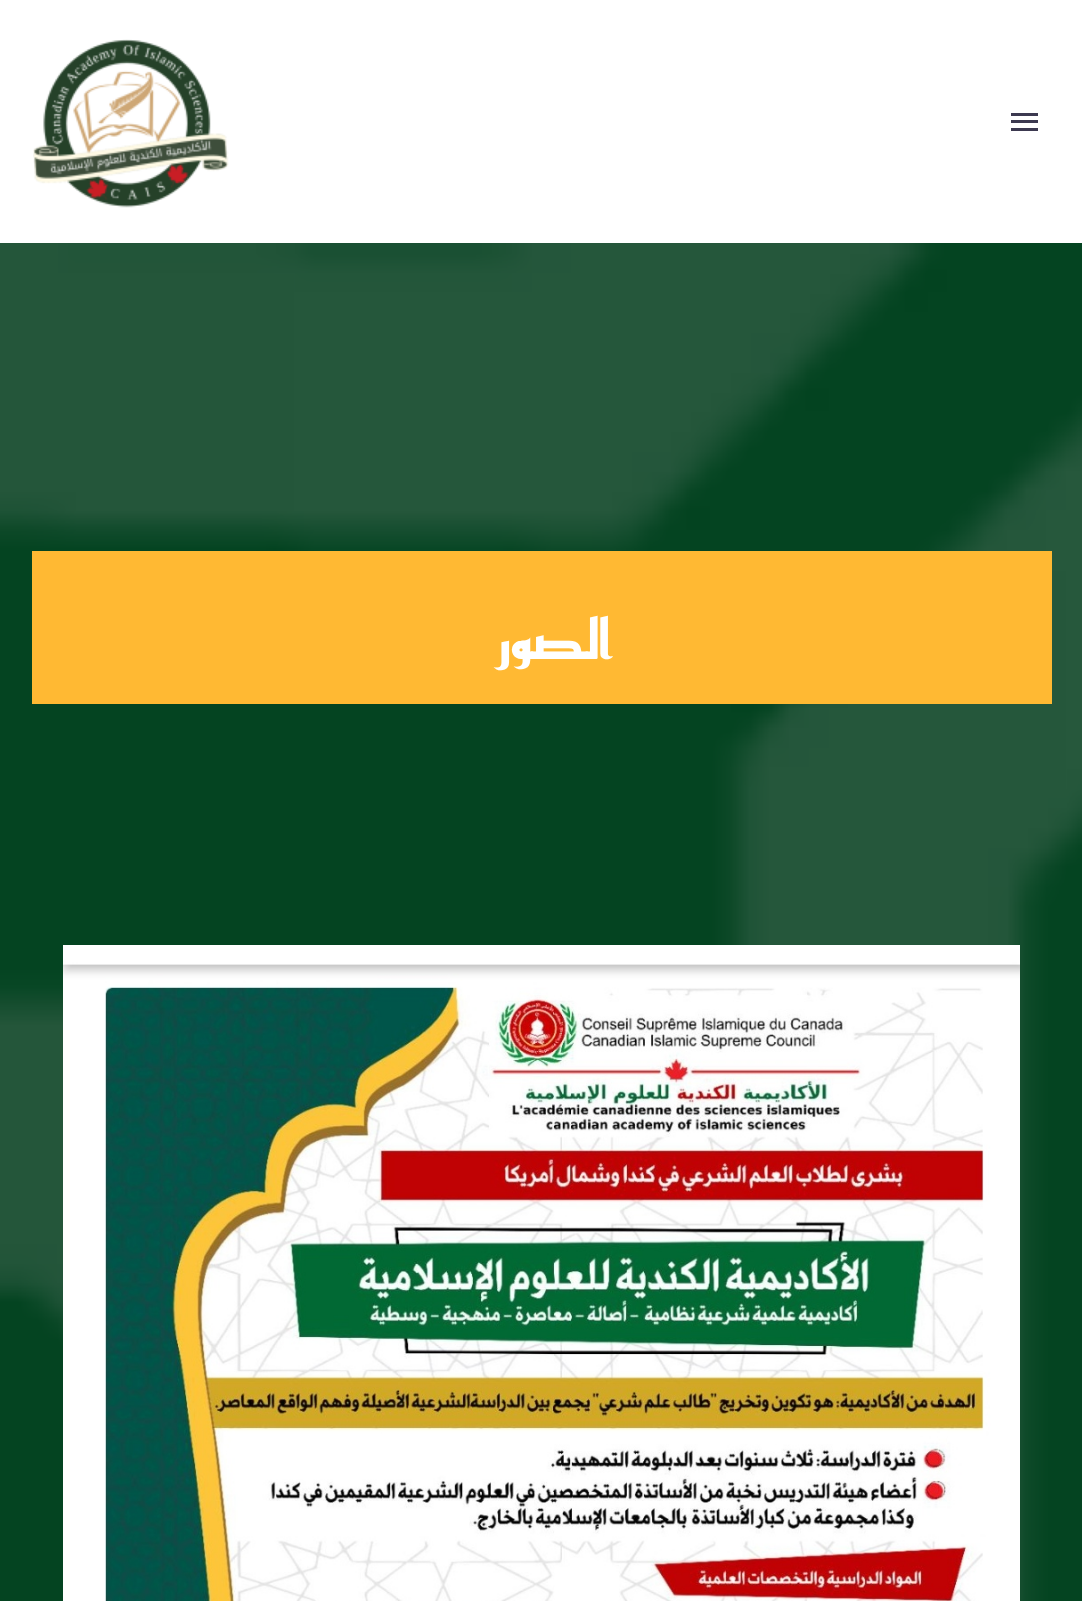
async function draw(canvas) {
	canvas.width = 1082;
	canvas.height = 1601;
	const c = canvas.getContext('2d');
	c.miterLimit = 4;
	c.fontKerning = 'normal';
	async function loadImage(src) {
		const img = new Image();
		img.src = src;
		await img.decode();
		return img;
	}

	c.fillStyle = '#fff';
	c.fillRect(0, 0, 1082, 1601);
	for (const [x, y, w, h, color] of [
		[1011, 113, 27, 3, '#3c3950'],
		[1011, 120, 27, 3, '#3c3950'],
		[1011, 128, 27, 3, '#3c3950'],
	]) {
		c.fillStyle = color;
		c.fillRect(x, y, w, h);
	}
	c.drawImage(await loadImage('img1.png'), 33, 39, 196, 169);
	c.drawImage(await loadImage('img2.png'), 0, 243, 1082, 1358);
	c.fillStyle = '#ffb933';
	c.fillRect(32, 551, 1020, 153);
	c.letterSpacing = '2.75px';
	c.direction = 'rtl';
	c.font = 'bold 54px Reem Kufi';
	c.fillStyle = '#fff';
	c.fillText('الصور', 613, 659);
	c.drawImage(await loadImage('img3.png'), 63, 945, 957, 656);
}

draw(document.querySelector('canvas'));
